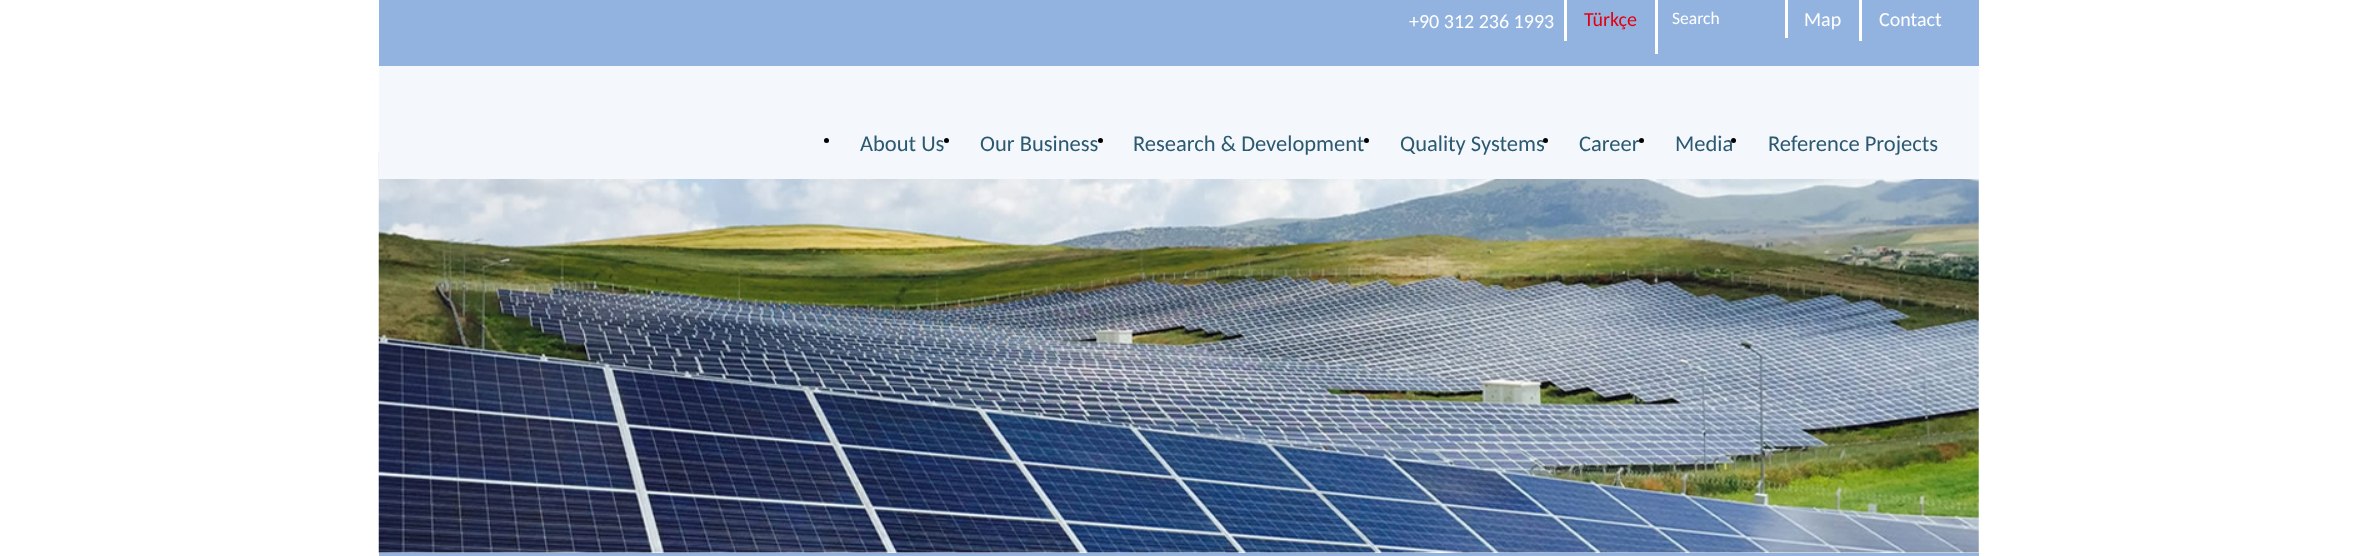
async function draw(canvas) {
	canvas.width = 2356;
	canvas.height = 556;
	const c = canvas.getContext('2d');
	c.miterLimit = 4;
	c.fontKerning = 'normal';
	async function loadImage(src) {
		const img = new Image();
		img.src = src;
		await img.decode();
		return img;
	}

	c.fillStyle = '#fff';
	c.fillRect(0, 0, 2356, 556);
	c.fillStyle = '#92b3e0';
	c.fillRect(379, 0, 1600, 66);
	c.fillStyle = '#fff';
	c.fillRect(1564, 0, 3, 41);
	c.font = '20px Carlito';
	c.fillText('+90 312 236 1993', 1409, 28);
	c.fillRect(1655, 0, 3, 54);
	c.fillStyle = '#e3000f';
	c.fillText('Türkçe', 1584, 26);
	c.fillStyle = '#fff';
	c.fillRect(1785, 0, 3, 38);
	c.font = '17.5px Carlito';
	c.fillText('Search', 1672, 24);
	c.fillRect(1859, 0, 3, 41);
	c.font = '20px Carlito';
	c.fillText('Map', 1804, 26);
	c.fillText('Contact', 1879, 26);
	c.drawImage(await loadImage('img1.png'), 378, 152, 1601, 401);
	c.fillStyle = '#f4f7fc';
	c.fillRect(379, 66, 1600, 113);
	c.fillStyle = '#000';
	c.beginPath();
	c.arc(826.5, 140.5, 2.5, 0, 2 * Math.PI);
	c.fill();
	c.font = '22.5px Carlito';
	c.fillStyle = '#2b5970';
	c.fillText('About Us', 860, 151);
	c.fillStyle = '#000';
	c.beginPath();
	c.arc(946.5, 140.5, 2.5, 0, 2 * Math.PI);
	c.fill();
	c.fillStyle = '#2b5970';
	c.fillText('Our Business', 980, 151);
	c.fillStyle = '#000';
	c.beginPath();
	c.arc(1100.5, 140.5, 2.5, 0, 2 * Math.PI);
	c.fill();
	c.fillStyle = '#2b5970';
	c.fillText('Research & Development', 1133, 151);
	c.fillStyle = '#000';
	c.beginPath();
	c.arc(1366.5, 140.5, 2.5, 0, 2 * Math.PI);
	c.fill();
	c.fillStyle = '#2b5970';
	c.fillText('Quality Systems', 1400, 151);
	c.fillStyle = '#000';
	c.beginPath();
	c.arc(1545.5, 140.5, 2.5, 0, 2 * Math.PI);
	c.fill();
	c.fillStyle = '#2b5970';
	c.fillText('Career', 1579, 151);
	c.fillStyle = '#000';
	c.beginPath();
	c.arc(1641.5, 140.5, 2.5, 0, 2 * Math.PI);
	c.fill();
	c.fillStyle = '#2b5970';
	c.fillText('Media', 1675, 151);
	c.fillStyle = '#000';
	c.beginPath();
	c.arc(1733.5, 140.5, 2.5, 0, 2 * Math.PI);
	c.fill();
	c.fillStyle = '#2b5970';
	c.fillText('Reference Projects', 1768, 151);
	c.fillStyle = '#92b3e0';
	c.fillRect(379, 553, 1600, 3);
}

draw(document.querySelector('canvas'));
